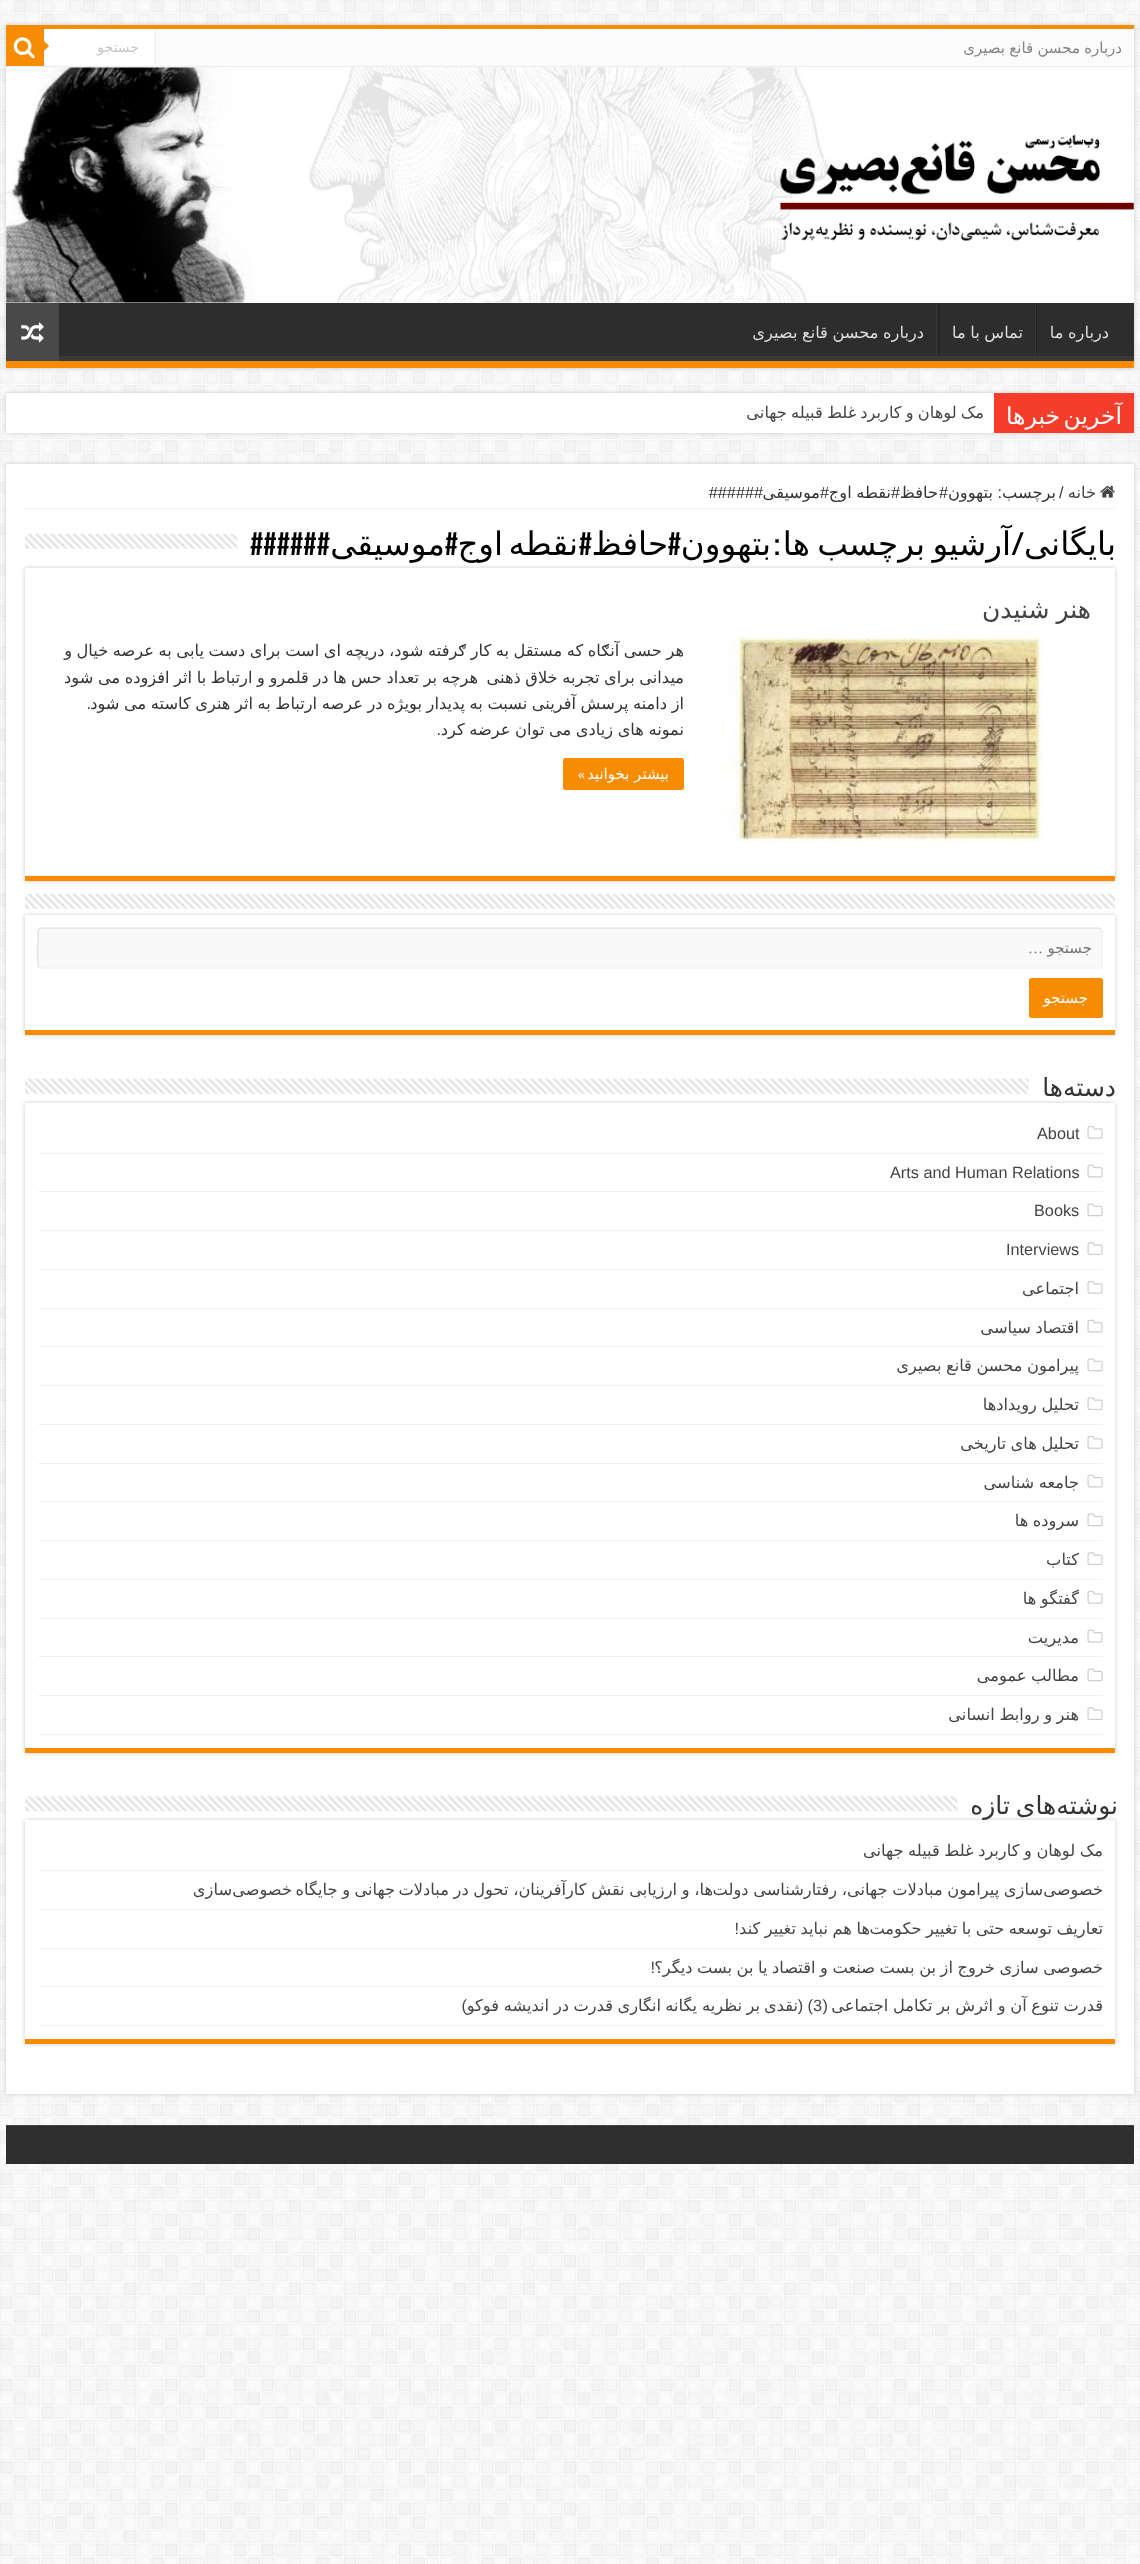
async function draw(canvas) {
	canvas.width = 1140;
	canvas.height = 2564;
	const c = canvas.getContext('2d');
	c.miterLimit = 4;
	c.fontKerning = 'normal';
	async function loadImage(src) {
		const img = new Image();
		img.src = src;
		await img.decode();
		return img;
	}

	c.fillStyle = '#fff';
	c.fillRect(0, 0, 1140, 2564);
	c.drawImage(await loadImage('img1.png'), 0, 0, 1140, 2564);
	c.fillStyle = '#cacaca';
	c.filter = 'blur(2px)';
	c.beginPath();
	c.rect(6, 25, 1128, 343);
	c.fill();
	c.filter = 'none';
	for (const [x, y, w, h, color] of [
		[6, 68, 1128, 235, '#fff'],
		[6, 25, 1128, 4, '#f88c00'],
		[6, 29, 1128, 39, '#fbfbfb'],
		[6, 66, 1128, 1, '#ececec'],
	]) {
		c.fillStyle = color;
		c.fillRect(x, y, w, h);
	}
	c.wordSpacing = '-0.5px';
	c.direction = 'rtl';
	c.font = '15px DejaVu Sans';
	c.fillStyle = '#838383';
	c.fillText('درباره محسن قانع بصیری', 1122, 53);
	c.fillStyle = '#fff';
	c.fillRect(44, 29, 111, 36);
	c.fillStyle = '#ececec';
	c.fillRect(155, 29, 1, 36);
	c.wordSpacing = '0px';
	c.font = '14px DejaVu Sans';
	c.fillStyle = '#c5c5c5';
	c.fillText('جستجو', 139, 52);
	c.fillStyle = '#f88c00';
	c.fillRect(6, 29, 38, 37);
	c.drawImage(await loadImage('img2.png'), 13, 37, 22, 22);
	c.beginPath();
	c.moveTo(44, 51);
	c.lineTo(44, 41);
	c.lineTo(49, 46);
	c.closePath();
	c.fill();
	c.drawImage(await loadImage('img3.png'), 6, 67, 1128, 236);
	c.fillStyle = '#2d2d2d';
	c.fillRect(59, 303, 1075, 53);
	c.save();
	c.beginPath();
	c.rect(6, 303, 1128, 58);
	c.clip();
	c.fillStyle = '#393939';
	c.beginPath();
	c.moveTo(-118, 179);
	c.lineTo(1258, 179);
	c.lineTo(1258, 485);
	c.lineTo(-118, 485);
	c.closePath();
	c.moveTo(5, 295);
	c.lineTo(1132, 295);
	c.bezierCurveTo(1133, 295, 1134, 296, 1134, 296);
	c.lineTo(1134, 355);
	c.bezierCurveTo(1134, 356, 1133, 356, 1132, 356);
	c.lineTo(5, 356);
	c.bezierCurveTo(4, 356, 4, 356, 4, 355);
	c.lineTo(4, 296);
	c.bezierCurveTo(4, 296, 4, 295, 5, 295);
	c.closePath();
	c.fill('evenodd');
	c.restore();
	c.fillStyle = '#f88c00';
	c.fillRect(6, 361, 1128, 7);
	c.wordSpacing = '-0.6px';
	c.font = '16.25px DejaVu Sans';
	c.fillStyle = '#ddd';
	c.fillText('درباره ما', 1109, 338);
	c.fillStyle = '#222';
	c.fillRect(1036, 303, 1, 52);
	c.fillStyle = '#383838';
	c.fillRect(1035, 303, 1, 52);
	c.fillStyle = '#ddd';
	c.fillText('تماس با ما', 1023, 338);
	c.fillStyle = '#222';
	c.fillRect(938, 303, 1, 52);
	c.fillStyle = '#383838';
	c.fillRect(936, 303, 1, 52);
	c.fillStyle = '#ddd';
	c.fillText('درباره محسن قانع بصیری', 924, 338);
	c.fillStyle = '#494949';
	c.fillRect(6, 303, 53, 58);
	c.drawImage(await loadImage('img4.png'), 21, 322, 23, 21);
	c.fillStyle = '#cacaca';
	c.filter = 'blur(2px)';
	c.beginPath();
	c.rect(6, 393, 1128, 40);
	c.fill();
	c.filter = 'none';
	c.fillStyle = '#fff';
	c.fillRect(6, 393, 988, 40);
	c.fillStyle = '#f43d2a';
	c.fillRect(994, 393, 140, 40);
	c.wordSpacing = '-4px';
	c.font = '23.5px DejaVu Sans';
	c.fillStyle = '#fff';
	c.fillText('آخرین خبرها', 1122, 424);
	c.wordSpacing = '-1px';
	c.font = '16.25px DejaVu Sans';
	c.fillStyle = '#444';
	c.fillText('مک لوهان و کاربرد غلط قبیله جهانی', 984, 418);
	c.fillStyle = '#cacaca';
	c.filter = 'blur(2px)';
	c.beginPath();
	c.rect(6, 464, 1128, 1630);
	c.fill();
	c.filter = 'none';
	c.fillStyle = '#fff';
	c.fillRect(6, 464, 1128, 1630);
	c.fillStyle = '#eee';
	c.fillRect(25, 508, 1090, 1);
	c.drawImage(await loadImage('img5.png'), 1100, 485, 15, 13);
	c.wordSpacing = '0px';
	c.fillStyle = '#444';
	c.fillText('خانه', 1096, 498);
	c.direction = 'ltr';
	c.font = '16.25px Liberation Sans';
	c.fillStyle = '#333';
	c.fillText('/', 1059, 498);
	c.direction = 'rtl';
	c.font = '16.25px DejaVu Sans';
	c.fillText('برچسب', 1056, 498);
	c.font = '16.25px Liberation Sans';
	c.fillText(':', 1002, 498);
	c.font = '16.25px DejaVu Sans';
	c.fillText('بتهوون', 993, 498);
	c.font = '16.25px Liberation Sans';
	c.fillText('#', 948, 498);
	c.font = '16.25px DejaVu Sans';
	c.fillText('حافظ', 938, 498);
	c.font = '16.25px Liberation Sans';
	c.fillText('#', 900, 498);
	c.wordSpacing = '-0.6px';
	c.font = '16.25px DejaVu Sans';
	c.fillText('نقطه اوج', 891, 498);
	c.wordSpacing = '0px';
	c.font = '16.25px Liberation Sans';
	c.fillText('#', 829, 498);
	c.font = '16.25px DejaVu Sans';
	c.fillText('موسیقی', 820, 498);
	c.font = '16.25px Liberation Sans';
	c.fillText('######', 763, 498);
	c.font = '32.5px DejaVu Sans';
	c.fillStyle = '#000';
	c.fillText('بایگانی', 1116, 555);
	c.save();
	c.beginPath();
	c.moveTo(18, 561);
	c.lineTo(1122, 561);
	c.lineTo(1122, 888);
	c.lineTo(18, 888);
	c.closePath();
	c.moveTo(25, 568);
	c.lineTo(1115, 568);
	c.lineTo(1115, 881);
	c.lineTo(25, 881);
	c.closePath();
	c.clip('evenodd');
	c.fillStyle = '#cacaca';
	c.filter = 'blur(2px)';
	c.beginPath();
	c.rect(25, 568, 1090, 313);
	c.fill();
	c.filter = 'none';
	c.restore();
	c.wordSpacing = '-3px';
	c.fillText('آرشیو برچسب ها', 1011, 555);
	c.wordSpacing = '0px';
	c.font = 'bold 32.5px Bebas Neue';
	c.fillText('#', 681, 555);
	c.font = '32.5px DejaVu Sans';
	c.fillText('حافظ', 668, 555);
	c.wordSpacing = '-5px';
	c.fillText('نقطه اوج', 578, 555);
	c.wordSpacing = '0px';
	c.font = 'bold 32.5px Bebas Neue';
	for (const [text, x, y] of [
		['#', 592, 555],
		['#', 458, 555],
		['######', 330, 555],
		['/', 1024, 555],
		[':', 780, 555],
	]) {
		c.fillText(text, x, y);
	}
	c.font = '32.5px DejaVu Sans';
	c.fillText('بتهوون', 771, 555);
	c.fillText('موسیقی', 445, 555);
	c.drawImage(await loadImage('img6.png'), 25, 533, 213, 16);
	c.fillStyle = '#f88c00';
	c.fillRect(25, 876, 1090, 5);
	c.fillStyle = '#f2f2f2';
	c.fillRect(25, 875, 1090, 1);
	c.wordSpacing = '-1px';
	c.font = '25px DejaVu Sans';
	c.fillStyle = '#444';
	c.fillText('هنر شنیدن', 1091, 618);
	c.drawImage(await loadImage('img7.png'), 703, 637, 387, 207);
	c.wordSpacing = '-0.6px';
	c.font = '16.25px DejaVu Sans';
	c.fillStyle = '#333';
	for (const [text, x, y] of [
		['هر حسی آنګاه که مستقل به کار ګرفته شود، دریچه ای است برای دست یابی به عرصه خیال و', 684, 656],
		['میدانی برای تجربه خلاق ذهنی', 684, 683],
		['هرچه بر تعداد حس ها در قلمرو و ارتباط با اثر افزوده می شود', 478, 683],
		['از دامنه پرسش آفرینی نسبت به پدیدار بویژه در عرصه ارتباط به اثر هنری کاسته می شود', 684, 709],
	]) {
		c.fillText(text, x, y);
	}
	c.wordSpacing = '0px';
	c.font = '16.25px Liberation Sans';
	c.fillText('.', 91, 709);
	c.wordSpacing = '-0.6px';
	c.font = '16.25px DejaVu Sans';
	c.fillText('نمونه های زیادی می توان عرضه کرد', 684, 735);
	c.wordSpacing = '0px';
	c.font = '16.25px Liberation Sans';
	c.fillText('.', 441, 735);
	c.fillStyle = '#f88c00';
	c.beginPath();
	c.roundRect(563, 758, 121, 32, 2.5);
	c.fill();
	c.font = '15px DejaVu Sans';
	c.fillStyle = '#fff';
	c.fillText('بیشتر بخوانید', 669, 779);
	c.font = '15px Liberation Serif';
	c.fillText('»', 585, 779);
	c.save();
	c.beginPath();
	c.moveTo(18, 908);
	c.lineTo(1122, 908);
	c.lineTo(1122, 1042);
	c.lineTo(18, 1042);
	c.closePath();
	c.moveTo(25, 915);
	c.lineTo(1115, 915);
	c.lineTo(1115, 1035);
	c.lineTo(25, 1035);
	c.closePath();
	c.clip('evenodd');
	c.fillStyle = '#cacaca';
	c.filter = 'blur(2px)';
	c.beginPath();
	c.rect(25, 915, 1090, 120);
	c.fill();
	c.filter = 'none';
	c.restore();
	c.drawImage(await loadImage('img8.png'), 25, 893, 1090, 16);
	c.fillStyle = '#f88c00';
	c.fillRect(25, 1030, 1090, 5);
	c.fillStyle = '#f9f9f9';
	c.beginPath();
	c.roundRect(38, 928, 1065, 41, 4);
	c.fill();
	c.beginPath();
	c.moveTo(1101, 929);
	c.bezierCurveTo(1103, 931, 1102, 955, 1102, 959.5);
	c.bezierCurveTo(1102, 961.5, 1103, 968, 1099, 968);
	c.lineTo(41, 968);
	c.lineTo(39, 967);
	c.strokeStyle = '#f1f1f1';
	c.lineWidth = 1.2;
	c.stroke();
	c.beginPath();
	c.moveTo(39, 967);
	c.bezierCurveTo(37, 965, 38, 941, 38, 937);
	c.bezierCurveTo(38, 934.5, 37, 928, 41, 928);
	c.lineTo(1099, 928);
	c.lineTo(1101, 929);
	c.strokeStyle = '#ddd';
	c.stroke();
	c.font = '15px DejaVu Sans';
	c.fillStyle = '#757575';
	c.fillText('جستجو', 1092, 953);
	c.font = '15px Liberation Serif';
	c.fillText('…', 1043, 953);
	c.fillStyle = '#f88c00';
	c.beginPath();
	c.roundRect(1029, 978, 74, 40, 2.5);
	c.fill();
	c.font = '15px DejaVu Sans';
	c.fillStyle = '#fff';
	c.fillText('جستجو', 1088, 1003);
	c.fillStyle = '#cacaca';
	c.filter = 'blur(2px)';
	c.beginPath();
	c.rect(25, 1103, 1090, 650);
	c.fill();
	c.filter = 'none';
	c.font = '25px DejaVu Sans';
	c.fillStyle = '#333';
	c.fillText('دسته‌ها', 1116, 1096);
	c.drawImage(await loadImage('img9.png'), 25, 1078, 1004, 16);
	for (const [x, y, w, h, color] of [
		[25, 1103, 1090, 645, '#fff'],
		[25, 1748, 1090, 5, '#f88c00'],
		[38, 1153, 1065, 1, '#f2f2f2'],
	]) {
		c.fillStyle = color;
		c.fillRect(x, y, w, h);
	}
	c.drawImage(await loadImage('img10.png'), 1087, 1126, 16, 13);
	c.direction = 'ltr';
	c.font = '16.25px Liberation Sans';
	c.fillStyle = '#444';
	c.fillText('About', 1037, 1139);
	c.fillStyle = '#f2f2f2';
	c.fillRect(38, 1191, 1065, 1);
	c.drawImage(await loadImage('img11.png'), 1087, 1164, 16, 14);
	c.fillStyle = '#444';
	c.fillText('Arts and Human Relations', 890, 1178);
	c.fillStyle = '#f2f2f2';
	c.fillRect(38, 1230, 1065, 1);
	c.drawImage(await loadImage('img12.png'), 1087, 1203, 16, 14);
	c.fillStyle = '#444';
	c.fillText('Books', 1034, 1216);
	c.fillStyle = '#f2f2f2';
	c.fillRect(38, 1269, 1065, 1);
	c.drawImage(await loadImage('img13.png'), 1087, 1242, 16, 13);
	c.fillStyle = '#444';
	c.fillText('Interviews', 1006, 1255);
	c.fillStyle = '#f2f2f2';
	c.fillRect(38, 1308, 1065, 1);
	c.drawImage(await loadImage('img10.png'), 1087, 1281, 16, 13);
	c.direction = 'rtl';
	c.font = '16.25px DejaVu Sans';
	c.fillStyle = '#444';
	c.fillText('اجتماعی', 1079, 1294);
	c.fillStyle = '#f2f2f2';
	c.fillRect(38, 1346, 1065, 1);
	c.drawImage(await loadImage('img11.png'), 1087, 1319, 16, 14);
	c.wordSpacing = '-0.6px';
	c.fillStyle = '#444';
	c.fillText('اقتصاد سیاسی', 1079, 1333);
	c.fillStyle = '#f2f2f2';
	c.fillRect(38, 1385, 1065, 1);
	c.drawImage(await loadImage('img12.png'), 1087, 1358, 16, 14);
	c.fillStyle = '#444';
	c.fillText('پیرامون محسن قانع بصیری', 1079, 1371);
	c.fillStyle = '#f2f2f2';
	c.fillRect(38, 1424, 1065, 1);
	c.drawImage(await loadImage('img13.png'), 1087, 1397, 16, 13);
	c.fillStyle = '#444';
	c.fillText('تحلیل رویدادها', 1079, 1410);
	c.fillStyle = '#f2f2f2';
	c.fillRect(38, 1463, 1065, 1);
	c.drawImage(await loadImage('img10.png'), 1087, 1436, 16, 13);
	c.fillStyle = '#444';
	c.fillText('تحلیل های تاریخی', 1079, 1449);
	c.fillStyle = '#f2f2f2';
	c.fillRect(38, 1501, 1065, 1);
	c.drawImage(await loadImage('img11.png'), 1087, 1474, 16, 14);
	c.fillStyle = '#444';
	c.fillText('جامعه شناسی', 1079, 1488);
	c.fillStyle = '#f2f2f2';
	c.fillRect(38, 1540, 1065, 1);
	c.drawImage(await loadImage('img12.png'), 1087, 1513, 16, 14);
	c.fillStyle = '#444';
	c.fillText('سروده ها', 1079, 1526);
	c.fillStyle = '#f2f2f2';
	c.fillRect(38, 1579, 1065, 1);
	c.drawImage(await loadImage('img13.png'), 1087, 1552, 16, 13);
	c.wordSpacing = '0px';
	c.fillStyle = '#444';
	c.fillText('کتاب', 1079, 1565);
	c.fillStyle = '#f2f2f2';
	c.fillRect(38, 1618, 1065, 1);
	c.drawImage(await loadImage('img10.png'), 1087, 1591, 16, 13);
	c.wordSpacing = '-0.6px';
	c.fillStyle = '#444';
	c.fillText('گفتگو ها', 1079, 1604);
	c.fillStyle = '#f2f2f2';
	c.fillRect(38, 1656, 1065, 1);
	c.drawImage(await loadImage('img11.png'), 1087, 1629, 16, 14);
	c.wordSpacing = '0px';
	c.fillStyle = '#444';
	c.fillText('مدیریت', 1079, 1643);
	c.fillStyle = '#f2f2f2';
	c.fillRect(38, 1695, 1065, 1);
	c.drawImage(await loadImage('img12.png'), 1087, 1668, 16, 14);
	c.wordSpacing = '-0.6px';
	c.fillStyle = '#444';
	c.fillText('مطالب عمومی', 1079, 1681);
	c.fillStyle = '#f2f2f2';
	c.fillRect(38, 1734, 1065, 1);
	c.drawImage(await loadImage('img13.png'), 1087, 1707, 16, 13);
	c.fillStyle = '#444';
	c.fillText('هنر و روابط انسانی', 1079, 1720);
	c.fillStyle = '#cacaca';
	c.filter = 'blur(2px)';
	c.beginPath();
	c.rect(25, 1820, 1090, 224);
	c.fill();
	c.filter = 'none';
	c.fillStyle = '#fff';
	c.fillRect(25, 1820, 1090, 219);
	c.wordSpacing = '-2px';
	c.font = '25px DejaVu Sans';
	c.fillStyle = '#333';
	c.fillText('نوشته‌های تازه', 1118, 1814);
	c.drawImage(await loadImage('img14.png'), 25, 1796, 933, 16);
	c.fillStyle = '#f88c00';
	c.fillRect(25, 2039, 1090, 5);
	c.fillStyle = '#f2f2f2';
	c.fillRect(38, 1870, 1065, 1);
	c.save();
	c.beginPath();
	c.rect(38, 1833, 1065, 37);
	c.clip();
	c.wordSpacing = '-0.6px';
	c.font = '16.25px DejaVu Sans';
	c.fillStyle = '#444';
	c.fillText('مک لوهان و کاربرد غلط قبیله جهانی', 1103, 1856);
	c.restore();
	c.fillRect(38, 1909, 1065, 1);
	c.wordSpacing = '-0.5px';
	c.font = '16.25px DejaVu Sans';
	c.fillStyle = '#444';
	c.fillText('ها، و ارزیابی نقش کارآفرینان، تحول در مبادلات', 713, 1895);
	c.fillText('سازی پیرامون مبادلات جهانی، رفتارشناسی دولت', 1043, 1895);
	c.wordSpacing = '0px';
	c.fillText('خصوصی', 1103, 1895);
	c.fillText('جهانی', 395, 1895);
	c.wordSpacing = '-0.5px';
	c.fillText('و جایگاه', 350, 1895);
	c.wordSpacing = '0px';
	c.fillText('خصوصی', 292, 1895);
	c.fillText('سازی', 232, 1895);
	c.fillStyle = '#f2f2f2';
	c.fillRect(38, 1948, 1065, 1);
	c.wordSpacing = '-0.6px';
	c.fillStyle = '#444';
	c.fillText('ها هم نباید تغییر کند', 870, 1934);
	c.save();
	c.beginPath();
	c.rect(38, 1910, 1065, 38);
	c.clip();
	c.fillText('تعاریف توسعه حتی با تغییر حکومت', 1103, 1934);
	c.restore();
	c.wordSpacing = '0px';
	c.font = '16.25px Liberation Sans';
	c.fillText('!', 739, 1934);
	c.fillStyle = '#f2f2f2';
	c.fillRect(38, 1986, 1065, 1);
	c.save();
	c.beginPath();
	c.rect(38, 1949, 1065, 37);
	c.clip();
	c.wordSpacing = '-0.6px';
	c.font = '16.25px DejaVu Sans';
	c.fillStyle = '#444';
	c.fillText('خصوصی سازی خروج از بن بست صنعت و اقتصاد یا بن بست دیگر؟', 1103, 1973);
	c.restore();
	c.fillStyle = '#444';
	c.fillText('!', 655, 1973);
	c.fillStyle = '#f2f2f2';
	c.fillRect(38, 2025, 1065, 1);
	c.save();
	c.beginPath();
	c.rect(38, 1988, 1065, 37);
	c.clip();
	c.wordSpacing = '-0.5px';
	c.font = '16.25px DejaVu Sans';
	c.fillStyle = '#444';
	c.fillText('قدرت تنوع آن و اثرش بر تکامل اجتماعی', 1103, 2011);
	c.restore();
	c.fillStyle = '#444';
	c.fillText('(', 828, 2011);
	c.direction = 'ltr';
	c.fillText('3', 813, 2011);
	c.direction = 'rtl';
	c.fillText(') (', 813, 2011);
	c.font = '16.25px DejaVu Sans';
	for (const [text, x, y] of [
		['نقدی', 798, 2011],
		['بر', 760, 2011],
		['نظریه', 742, 2011],
		['یگانه', 697, 2011],
		['انگاری', 661, 2011],
		['قدرت', 613, 2011],
		['در', 569, 2011],
		['اندیشه', 549, 2011],
	]) {
		c.fillText(text, x, y);
	}
	c.font = '16.25px Liberation Sans';
	c.fillText(')', 467, 2011);
	c.font = '16.25px DejaVu Sans';
	c.fillText('فوکو', 499, 2011);
	c.fillStyle = '#2e2e2e';
	c.fillRect(6, 2126, 1128, 38);
	c.fillStyle = '#444';
	c.fillRect(6, 2125, 1128, 1);
}

draw(document.querySelector('canvas'));
